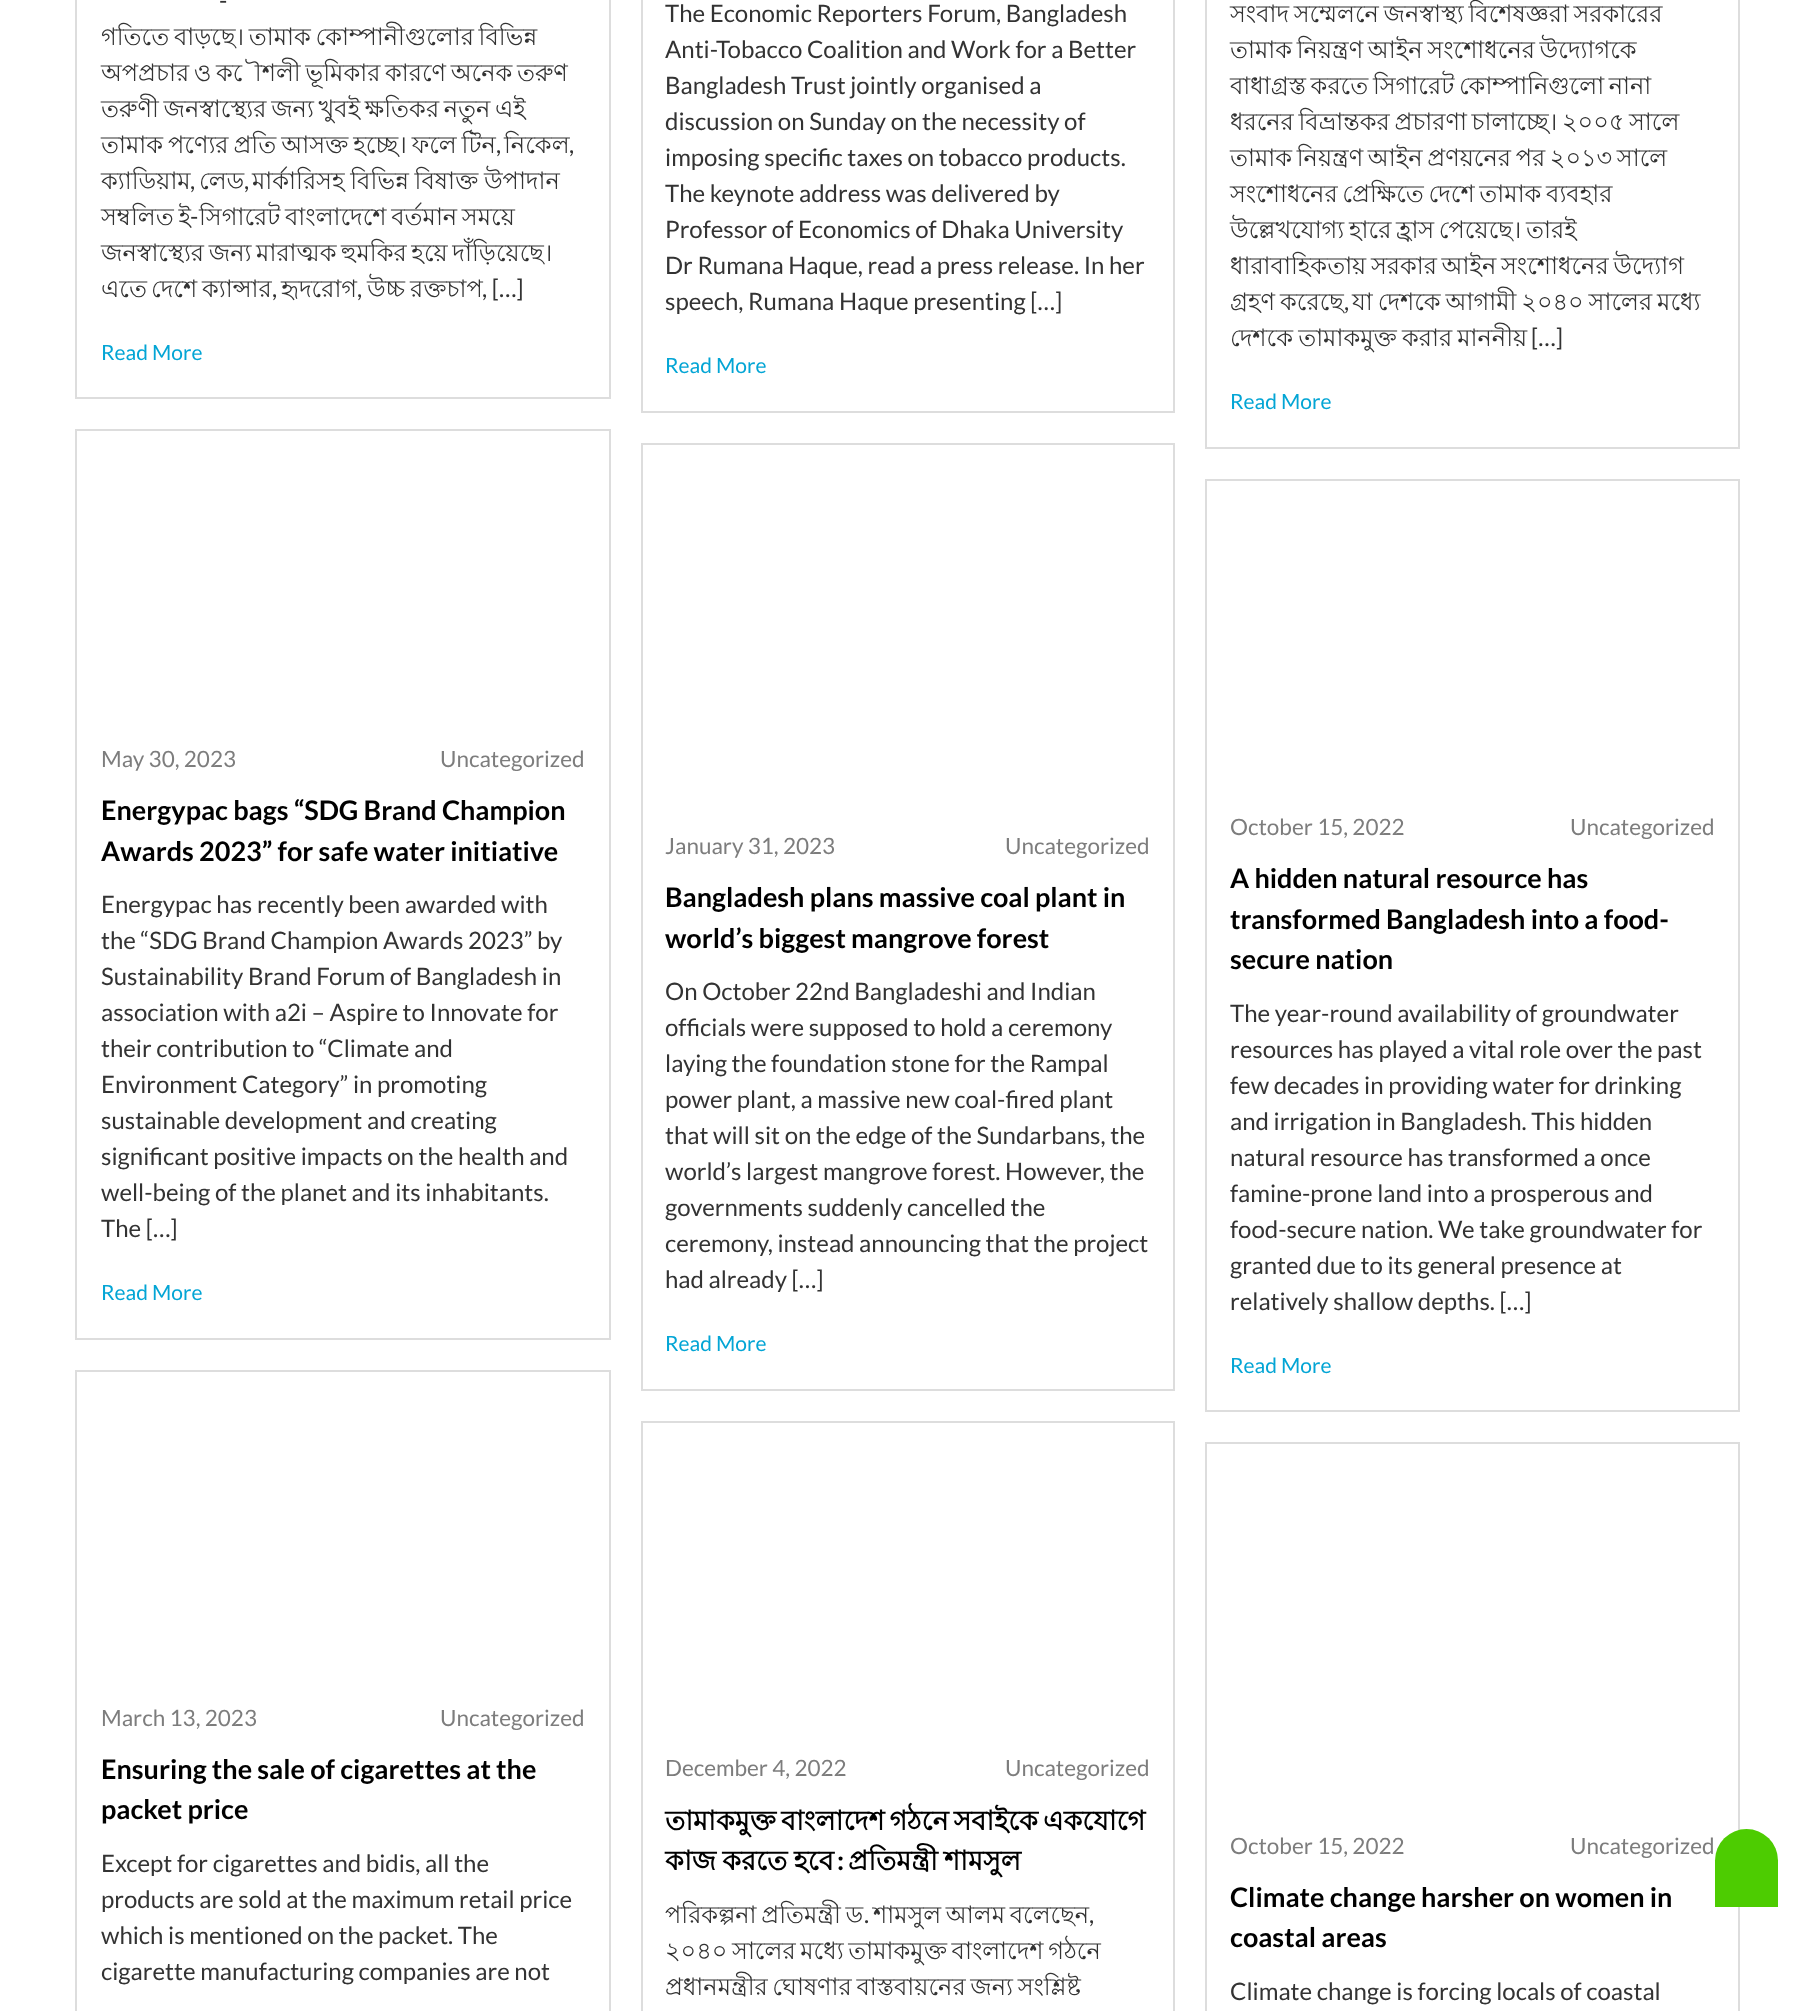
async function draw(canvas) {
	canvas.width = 1815;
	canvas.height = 2011;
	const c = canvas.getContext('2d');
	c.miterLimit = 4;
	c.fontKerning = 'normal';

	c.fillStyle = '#fff';
	c.fillRect(0, 0, 1815, 2011);
	c.strokeStyle = '#ddd';
	c.lineWidth = 2;
	c.strokeRect(76, -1, 534, 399);
	c.font = '24px Lato';
	c.fillStyle = '#333';
	c.fillText('-', 219, 9);
	c.wordSpacing = '-2px';
	c.font = '24px Lohit Bengali';
	c.fillText('গতিতে বাড়ছে। তামাক কোম্পানীগুলোর বিভিন্ন', 101, 45);
	c.fillText('অপপ্রচার ও কৌশলী ভূমিকার কারণে অনেক তরুণ', 101, 81);
	c.wordSpacing = '0px';
	c.font = '24px Lato';
	c.fillText('-', 555, 81);
	c.wordSpacing = '-2px';
	c.font = '24px Lohit Bengali';
	c.fillText('তরুণী জনস্বাস্থ্যের জন্য খুবই ক্ষতিকর নতুন এই', 101, 117);
	c.wordSpacing = '-1.75px';
	c.fillText('তামাক পণ্যের প্রতি আসক্ত হচ্ছে। ফলে টিন', 101, 153);
	c.wordSpacing = '0px';
	c.font = '24px Lato';
	c.fillText(',', 496, 153);
	c.font = '24px Lohit Bengali';
	c.fillText('নিকেল', 504, 153);
	c.font = '24px Lato';
	c.fillText(',', 569, 153);
	c.font = '24px Lohit Bengali';
	c.fillText('ক্যাডিয়াম', 101, 189);
	c.font = '24px Lato';
	c.fillText(',', 190, 189);
	c.font = '24px Lohit Bengali';
	c.fillText('লেড', 199, 189);
	c.font = '24px Lato';
	c.fillText(',', 244, 189);
	c.wordSpacing = '-1px';
	c.font = '24px Lohit Bengali';
	c.fillText('মার্কারিসহ বিভিন্ন বিষাক্ত উপাদান', 252, 189);
	c.wordSpacing = '-2px';
	c.fillText('সম্বলিত ই', 101, 225);
	c.wordSpacing = '0px';
	c.font = '24px Lato';
	c.fillText('-', 190, 225);
	c.wordSpacing = '-2px';
	c.font = '24px Lohit Bengali';
	c.fillText('সিগারেট বাংলাদেশে বর্তমান সময়ে', 199, 225);
	c.fillText('জনস্বাস্থ্যের জন্য মারাত্মক হুমকির হয়ে দাঁড়িয়েছে।', 101, 261);
	c.wordSpacing = '0px';
	for (const [text, x, y] of [
		['এতে', 101, 297],
		['দেশে', 151, 297],
		['ক্যান্সার', 202, 297],
	]) {
		c.fillText(text, x, y);
	}
	c.font = '24px Lato';
	c.fillText(',', 272, 297);
	c.font = '24px Lohit Bengali';
	c.fillText('হৃদরোগ', 281, 297);
	c.font = '24px Lato';
	c.fillText(',', 357, 297);
	c.font = '24px Lohit Bengali';
	c.fillText('উচ্চ', 367, 297);
	c.fillText('রক্তচাপ', 410, 297);
	c.font = '24px Lato';
	c.fillText(', […]', 482, 297);
	c.font = '21px Lato';
	c.fillStyle = '#03a5d5';
	c.fillText('Read More', 101, 360);
	c.strokeRect(642, -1, 532, 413);
	c.font = '24px Lato';
	c.fillStyle = '#333';
	for (const [text, x, y] of [
		['The Economic Reporters Forum, Bangladesh', 665, 22],
		['Anti-Tobacco Coalition and Work for a Better', 665, 58],
		['Bangladesh Trust jointly organised a', 665, 94],
		['discussion on Sunday on the necessity of', 665, 130],
		['imposing specific taxes on tobacco products.', 665, 166],
		['The keynote address was delivered by', 665, 202],
		['Professor of Economics of Dhaka University', 665, 238],
		['Dr Rumana Haque, read a press release. In her', 665, 274],
		['speech, Rumana Haque presenting […]', 665, 310],
	]) {
		c.fillText(text, x, y);
	}
	c.font = '21px Lato';
	c.fillStyle = '#03a5d5';
	c.fillText('Read More', 665, 373);
	c.strokeRect(1206, -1, 533, 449);
	c.wordSpacing = '-2px';
	c.font = '24px Lohit Bengali';
	c.fillStyle = '#333';
	for (const [text, x, y] of [
		['সংবাদ সম্মেলনে জনস্বাস্থ্য বিশেষজ্ঞরা সরকারের', 1230, 22],
		['তামাক নিয়ন্ত্রণ আইন সংশোধনের উদ্যোগকে', 1230, 58],
		['বাধাগ্রস্ত করতে সিগারেট কোম্পানিগুলো নানা', 1230, 94],
		['ধরনের বিভ্রান্তকর প্রচারণা চালাচ্ছে। ২০০৫ সালে', 1230, 130],
		['তামাক নিয়ন্ত্রণ আইন প্রণয়নের পর ২০১৩ সালে', 1230, 166],
		['সংশোধনের প্রেক্ষিতে দেশে তামাক ব্যবহার', 1230, 202],
		['উল্লেখযোগ্য হারে হ্রাস পেয়েছে। তারই', 1230, 238],
		['ধারাবাহিকতায় সরকার আইন সংশোধনের উদ্যোগ', 1230, 274],
	]) {
		c.fillText(text, x, y);
	}
	c.wordSpacing = '-1.75px';
	c.fillText('গ্রহণ করেছে', 1230, 310);
	c.wordSpacing = '0px';
	c.font = '24px Lato';
	c.fillText(',', 1344, 310);
	c.wordSpacing = '-1.75px';
	c.font = '24px Lohit Bengali';
	c.fillText('যা দেশকে আগামী ২০৪০ সালের মধ্যে', 1352, 310);
	c.wordSpacing = '-1.5px';
	c.fillText('দেশকে তামাকমুক্ত করার মাননীয়', 1230, 346);
	c.wordSpacing = '0px';
	c.font = '24px Lato';
	c.fillText('[…]', 1531, 346);
	c.font = '21px Lato';
	c.fillStyle = '#03a5d5';
	c.fillText('Read More', 1230, 409);
	c.strokeRect(76, 430, 534, 909);
	c.font = '22.5px Lato';
	c.fillStyle = '#7d7d7d';
	c.fillText('May 30, 2023', 101, 767);
	c.fillText('Uncategorized', 440, 767);
	c.font = 'bold 27px Lato';
	c.fillStyle = '#000';
	c.fillText('Energypac bags “SDG Brand Champion', 101, 820);
	c.fillText('Awards 2023” for safe water initiative', 101, 861);
	c.font = '24px Lato';
	c.fillStyle = '#333';
	for (const [text, x, y] of [
		['Energypac has recently been awarded with', 101, 913],
		['the “SDG Brand Champion Awards 2023” by', 101, 949],
		['Sustainability Brand Forum of Bangladesh in', 101, 985],
		['association with a2i – Aspire to Innovate for', 101, 1021],
		['their contribution to “Climate and', 101, 1057],
		['Environment Category” in promoting', 101, 1093],
		['sustainable development and creating', 101, 1129],
		['significant positive impacts on the health and', 101, 1165],
		['well-being of the planet and its inhabitants.', 101, 1201],
		['The […]', 101, 1237],
	]) {
		c.fillText(text, x, y);
	}
	c.font = '21px Lato';
	c.fillStyle = '#03a5d5';
	c.fillText('Read More', 101, 1300);
	c.strokeRect(642, 444, 532, 946);
	c.font = '22.5px Lato';
	c.fillStyle = '#7d7d7d';
	c.fillText('January 31, 2023', 665, 854);
	c.fillText('Uncategorized', 1005, 854);
	c.font = 'bold 27px Lato';
	c.fillStyle = '#000';
	c.fillText('Bangladesh plans massive coal plant in', 665, 907);
	c.fillText('world’s biggest mangrove forest', 665, 948);
	c.font = '24px Lato';
	c.fillStyle = '#333';
	for (const [text, x, y] of [
		['On October 22nd Bangladeshi and Indian', 665, 1000],
		['officials were supposed to hold a ceremony', 665, 1036],
		['laying the foundation stone for the Rampal', 665, 1072],
		['power plant, a massive new coal-fired plant', 665, 1108],
		['that will sit on the edge of the Sundarbans, the', 665, 1144],
		['world’s largest mangrove forest. However, the', 665, 1180],
		['governments suddenly cancelled the', 665, 1216],
		['ceremony, instead announcing that the project', 665, 1252],
		['had already […]', 665, 1288],
	]) {
		c.fillText(text, x, y);
	}
	c.font = '21px Lato';
	c.fillStyle = '#03a5d5';
	c.fillText('Read More', 665, 1351);
	c.strokeRect(1206, 480, 533, 931);
	c.font = '22.5px Lato';
	c.fillStyle = '#7d7d7d';
	c.fillText('October 15, 2022', 1230, 835);
	c.fillText('Uncategorized', 1570, 835);
	c.font = 'bold 27px Lato';
	c.fillStyle = '#000';
	for (const [text, x, y] of [
		['A hidden natural resource has', 1230, 888],
		['transformed Bangladesh into a food-', 1230, 929],
		['secure nation', 1230, 969],
	]) {
		c.fillText(text, x, y);
	}
	c.font = '24px Lato';
	c.fillStyle = '#333';
	for (const [text, x, y] of [
		['The year-round availability of groundwater', 1230, 1022],
		['resources has played a vital role over the past', 1230, 1058],
		['few decades in providing water for drinking', 1230, 1094],
		['and irrigation in Bangladesh. This hidden', 1230, 1130],
		['natural resource has transformed a once', 1230, 1166],
		['famine-prone land into a prosperous and', 1230, 1202],
		['food-secure nation. We take groundwater for', 1230, 1238],
		['granted due to its general presence at', 1230, 1274],
		['relatively shallow depths. […]', 1230, 1310],
	]) {
		c.fillText(text, x, y);
	}
	c.font = '21px Lato';
	c.fillStyle = '#03a5d5';
	c.fillText('Read More', 1230, 1373);
	c.strokeRect(76, 1371, 534, 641);
	c.font = '22.5px Lato';
	c.fillStyle = '#7d7d7d';
	c.fillText('March 13, 2023', 101, 1726);
	c.fillText('Uncategorized', 440, 1726);
	c.font = 'bold 27px Lato';
	c.fillStyle = '#000';
	c.fillText('Ensuring the sale of cigarettes at the', 101, 1779);
	c.fillText('packet price', 101, 1819);
	c.font = '24px Lato';
	c.fillStyle = '#333';
	for (const [text, x, y] of [
		['Except for cigarettes and bidis, all the', 101, 1872],
		['products are sold at the maximum retail price', 101, 1908],
		['which is mentioned on the packet. The', 101, 1944],
		['cigarette manufacturing companies are not', 101, 1980],
	]) {
		c.fillText(text, x, y);
	}
	c.strokeRect(642, 1422, 532, 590);
	c.font = '22.5px Lato';
	c.fillStyle = '#7d7d7d';
	c.fillText('December 4, 2022', 665, 1776);
	c.fillText('Uncategorized', 1005, 1776);
	c.wordSpacing = '-2.5px';
	c.font = 'bold 27px Lohit Bengali';
	c.fillStyle = '#000';
	c.fillText('তামাকমুক্ত বাংলাদেশ গঠনে সবাইকে একযোগে', 665, 1830);
	c.wordSpacing = '-1px';
	c.fillText('কাজ করতে হবে', 665, 1870);
	c.wordSpacing = '0px';
	c.font = 'bold 27px Lato';
	c.fillText(':', 837, 1870);
	c.wordSpacing = '-1px';
	c.font = 'bold 27px Lohit Bengali';
	c.fillText('প্রতিমন্ত্রী শামসুল', 848, 1870);
	c.wordSpacing = '-2px';
	c.font = '24px Lohit Bengali';
	c.fillStyle = '#333';
	c.fillText('পরিকল্পনা প্রতিমন্ত্রী ড', 665, 1923);
	c.wordSpacing = '0px';
	c.font = '24px Lato';
	c.fillText('.', 864, 1923);
	c.wordSpacing = '-2px';
	c.font = '24px Lohit Bengali';
	c.fillText('শামসুল আলম বলেছেন', 873, 1923);
	c.wordSpacing = '0px';
	c.font = '24px Lato';
	c.fillText(',', 1089, 1923);
	c.wordSpacing = '-2px';
	c.font = '24px Lohit Bengali';
	c.fillText('২০৪০ সালের মধ্যে তামাকমুক্ত বাংলাদেশ গঠনে', 665, 1959);
	c.fillText('প্রধানমন্ত্রীর ঘোষণার বাস্তবায়নের জন্য সংশ্লিষ্ট', 665, 1995);
	c.strokeRect(1206, 1443, 533, 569);
	c.wordSpacing = '0px';
	c.font = '22.5px Lato';
	c.fillStyle = '#7d7d7d';
	c.fillText('October 15, 2022', 1230, 1854);
	c.fillText('Uncategorized', 1570, 1854);
	c.font = 'bold 27px Lato';
	c.fillStyle = '#000';
	c.fillText('Climate change harsher on women in', 1230, 1907);
	c.fillText('coastal areas', 1230, 1947);
	c.font = '24px Lato';
	c.fillStyle = '#333';
	c.fillText('Climate change is forcing locals of coastal', 1230, 2000);
	c.fillStyle = '#4dcc01';
	c.beginPath();
	c.roundRect(1715, 1829, 63, 78, [31.5, 31.5, 0, 0]);
	c.fill();
}

draw(document.querySelector('canvas'));
